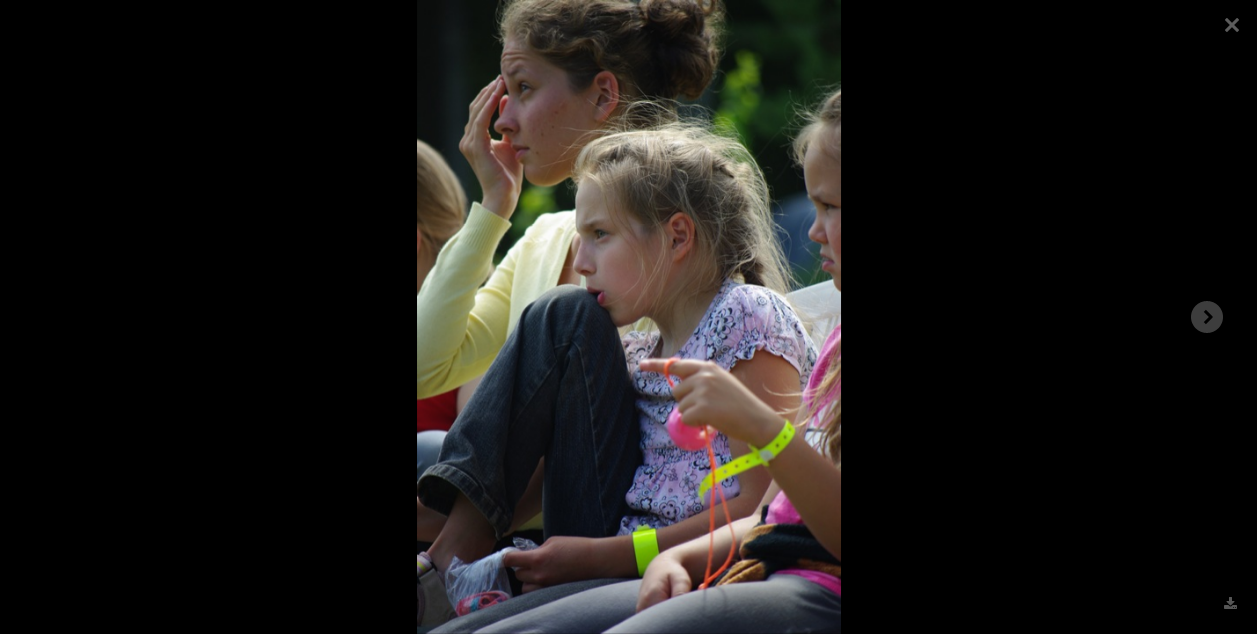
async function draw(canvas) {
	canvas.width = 1257;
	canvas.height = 634;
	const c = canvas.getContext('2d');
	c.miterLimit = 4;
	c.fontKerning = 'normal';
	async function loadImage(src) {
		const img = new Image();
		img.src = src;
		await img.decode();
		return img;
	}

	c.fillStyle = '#000';
	c.fillRect(0, 0, 1257, 634);
	c.drawImage(await loadImage('img1.png'), 417, 0, 425, 634);
	c.drawImage(await loadImage('img2.png'), 1225, 18, 14, 14);
	c.drawImage(await loadImage('img3.png'), 1191, 301, 32, 32);
	c.drawImage(await loadImage('img4.png'), 1224, 597, 13, 12);
}

draw(document.querySelector('canvas'));
